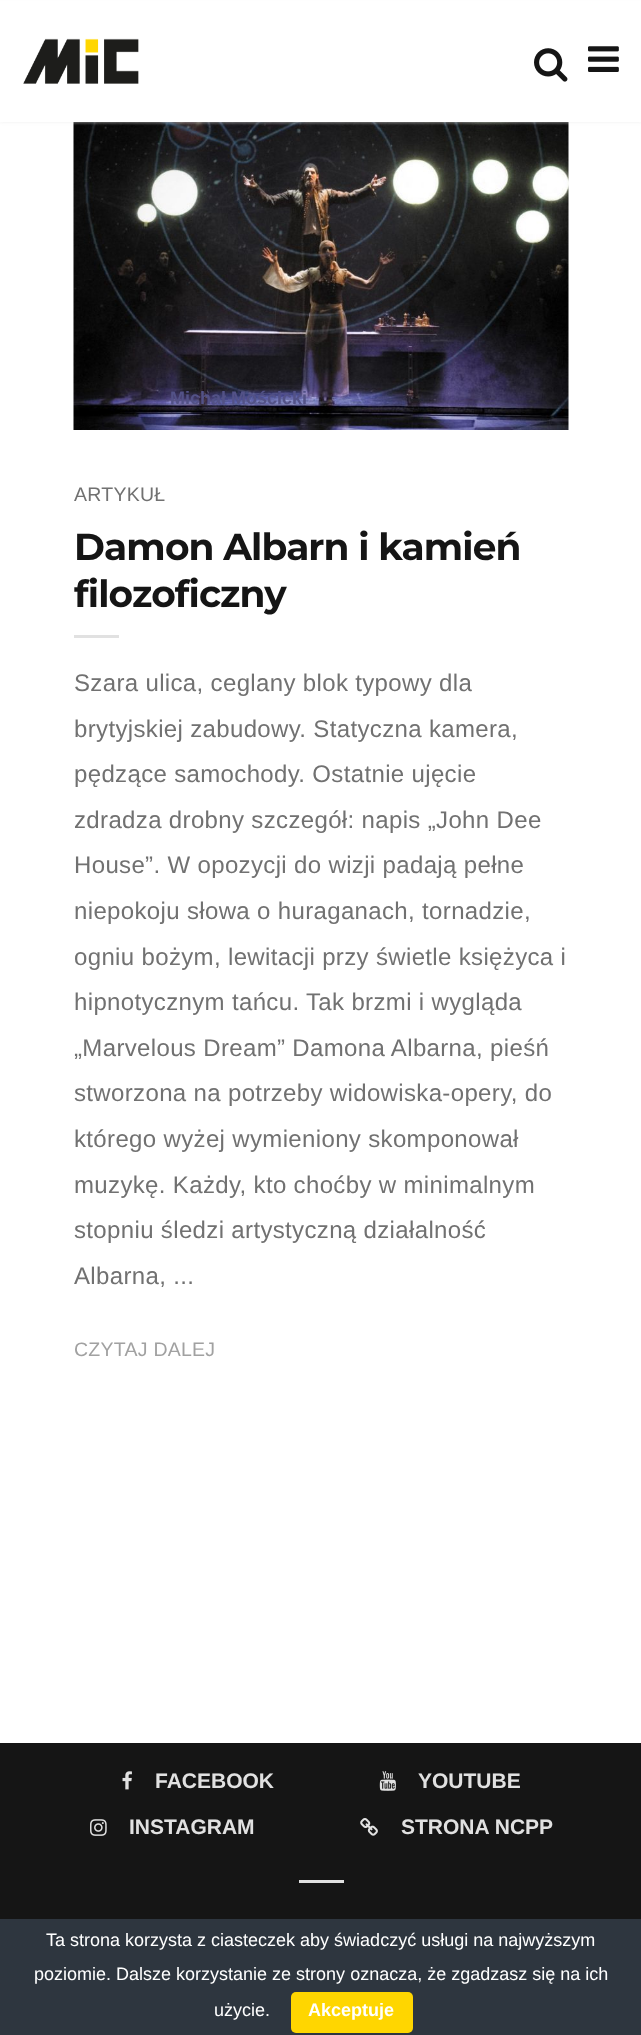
async function draw(canvas) {
	canvas.width = 641;
	canvas.height = 2035;
	const c = canvas.getContext('2d');
	c.miterLimit = 4;
	c.fontKerning = 'normal';
	async function loadImage(src) {
		const img = new Image();
		img.src = src;
		await img.decode();
		return img;
	}

	c.fillStyle = '#fff';
	c.fillRect(0, 0, 641, 2035);
	c.drawImage(await loadImage('img4.png'), 73, 122, 496, 308);
	c.fillStyle = '#ebebeb80';
	c.filter = 'blur(1.5px)';
	c.beginPath();
	c.rect(0, 2, 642, 121);
	c.fill();
	c.filter = 'none';
	c.fillStyle = '#fff';
	c.fillRect(0, 1, 641, 121);
	c.drawImage(await loadImage('img1.png'), 23, 38, 116, 46);
	c.drawImage(await loadImage('img2.png'), 534, 48, 34, 34);
	c.drawImage(await loadImage('img3.png'), 588, 46, 31, 26);
	c.font = 'bold 18px Liberation Sans';
	c.fillStyle = '#535287';
	c.fillText('Michał Mościcki', 170, 404);
	c.letterSpacing = '0.25px';
	c.font = '19.5px Liberation Sans';
	c.fillStyle = '#717171';
	c.fillText('ARTYKUŁ', 74, 501);
	c.letterSpacing = '-0.9px';
	c.font = 'bold 37.5px Montserrat';
	c.fillStyle = '#151515';
	c.fillText('Damon Albarn i kamień', 74, 560);
	c.fillText('filozoficzny', 74, 607);
	c.fillStyle = '#e1e1e1';
	c.fillRect(74, 635, 45, 3);
	c.letterSpacing = '0.35px';
	c.font = '24px Liberation Sans';
	c.fillStyle = '#717171';
	for (const [text, x, y] of [
		['Szara ulica, ceglany blok typowy dla', 74, 691],
		['brytyjskiej zabudowy. Statyczna kamera,', 74, 737],
		['pędzące samochody. Ostatnie ujęcie', 74, 782],
		['zdradza drobny szczegół: napis „John Dee', 74, 828],
		['House”. W opozycji do wizji padają pełne', 74, 873],
		['niepokoju słowa o huraganach, tornadzie,', 74, 919],
		['ogniu bożym, lewitacji przy świetle księżyca i', 74, 965],
		['hipnotycznym tańcu. Tak brzmi i wygląda', 74, 1010],
		['„Marvelous Dream” Damona Albarna, pieśń', 74, 1056],
		['stworzona na potrzeby widowiska-opery, do', 74, 1101],
		['którego wyżej wymieniony skomponował', 74, 1147],
		['muzykę. Każdy, kto choćby w minimalnym', 74, 1193],
		['stopniu śledzi artystyczną działalność', 74, 1238],
		['Albarna, ...', 74, 1284],
	]) {
		c.fillText(text, x, y);
	}
	c.letterSpacing = '0.25px';
	c.font = '19.5px Liberation Sans';
	c.fillStyle = '#a1a1a1';
	c.fillText('CZYTAJ DALEJ', 74, 1356);
	c.fillStyle = '#151515';
	c.fillRect(0, 1743, 641, 176);
	c.drawImage(await loadImage('img5.png'), 122, 1771, 10, 19);
	c.letterSpacing = '0px';
	c.font = 'bold 21px Liberation Sans';
	c.fillStyle = '#e1e1e1';
	c.fillText('FACEBOOK', 155, 1788);
	c.drawImage(await loadImage('img6.png'), 379, 1771, 17, 20);
	c.fillText('YOUTUBE', 418, 1788);
	c.drawImage(await loadImage('img7.png'), 90, 1819, 17, 17);
	c.fillText('INSTAGRAM', 129, 1834);
	c.drawImage(await loadImage('img8.png'), 360, 1818, 18, 18);
	c.fillText('STRONA NCPP', 401, 1834);
	c.fillRect(299, 1880, 45, 3);
	c.fillStyle = '#2e363f';
	c.fillRect(0, 1919, 641, 116);
	c.font = '18px Liberation Sans';
	c.fillStyle = '#fff';
	for (const [text, x, y] of [
		['Ta strona korzysta z ciasteczek aby świadczyć usługi na najwyższym', 46, 1946],
		['poziomie. Dalsze korzystanie ze strony oznacza, że zgadzasz się na ich', 34, 1980],
		['użycie.', 214, 2016],
	]) {
		c.fillText(text, x, y);
	}
	c.fillStyle = '#ffd600';
	c.beginPath();
	c.roundRect(291, 1992, 122, 41, 5);
	c.fill();
	c.font = 'bold 18px Liberation Sans';
	c.fillStyle = '#fff';
	c.fillText('Akceptuje', 308, 2016);
}

draw(document.querySelector('canvas'));
